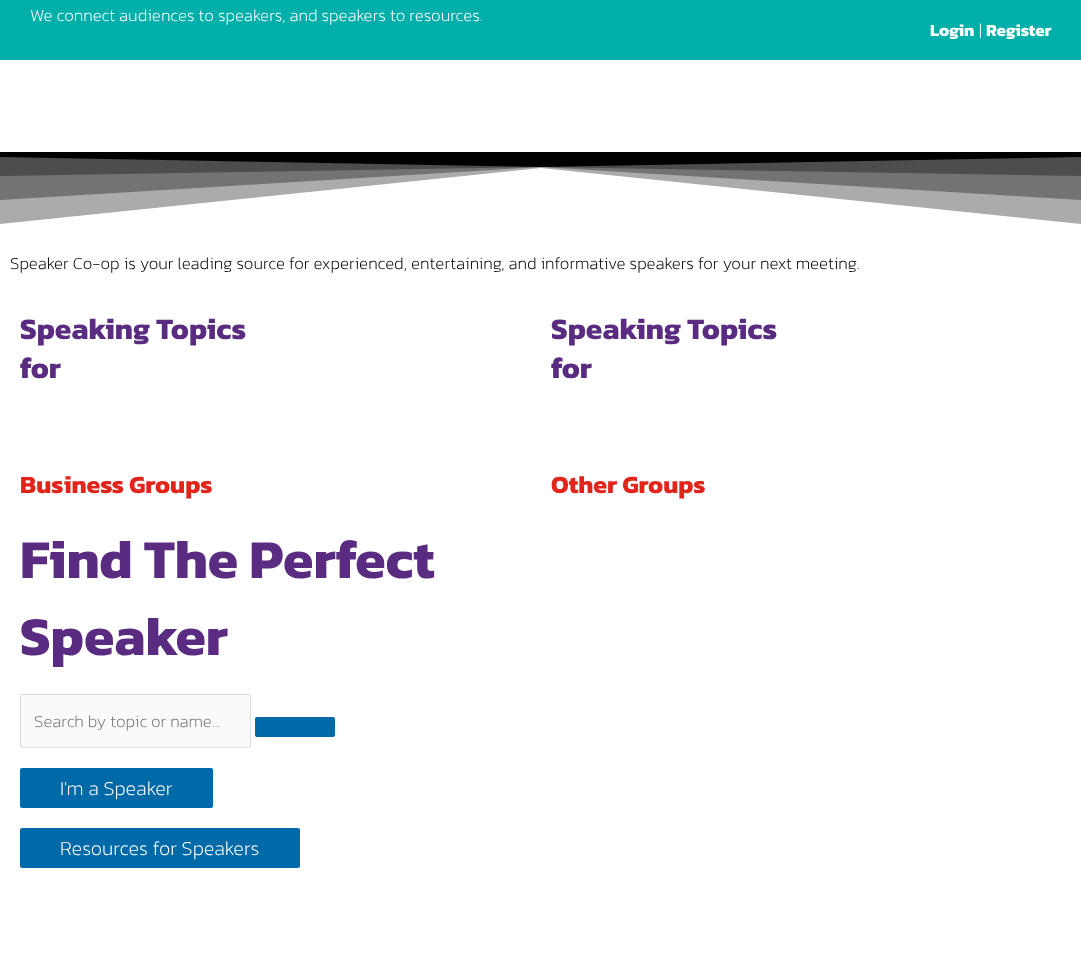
async function draw(canvas) {
	canvas.width = 1081;
	canvas.height = 958;
	const c = canvas.getContext('2d');
	c.miterLimit = 4;
	c.fontKerning = 'normal';

	c.fillStyle = '#fff';
	c.fillRect(0, 0, 1081, 958);
	c.fillStyle = '#00afaa';
	c.fillRect(0, 0, 1081, 60);
	c.font = '200 17px Kanit';
	c.fillStyle = '#fff';
	c.fillText('We connect audiences to speakers, and speakers to resources.', 30, 21);
	c.font = 'bold 17px Kanit';
	c.fillText('Login', 930, 36);
	c.font = '200 17px Kanit';
	c.fillText('|', 979, 36);
	c.font = 'bold 17px Kanit';
	c.fillText('Register', 986, 36);
	c.fillStyle = '#ababab';
	c.beginPath();
	c.moveTo(0, 152);
	c.lineTo(0, 224);
	c.lineTo(541, 168);
	c.lineTo(1081, 224);
	c.lineTo(1081, 152);
	c.closePath();
	c.fill();
	c.fillStyle = '#737373';
	c.beginPath();
	c.moveTo(0, 152);
	c.lineTo(0, 200);
	c.lineTo(541, 167);
	c.lineTo(1081, 200);
	c.lineTo(1081, 152);
	c.closePath();
	c.fill();
	c.fillStyle = '#4d4d4d';
	c.beginPath();
	c.moveTo(0, 152);
	c.lineTo(0, 176);
	c.lineTo(541, 167);
	c.lineTo(1081, 176);
	c.lineTo(1081, 152);
	c.closePath();
	c.fill();
	c.fillStyle = '#000';
	c.beginPath();
	c.moveTo(0, 152);
	c.lineTo(0, 157);
	c.lineTo(541, 167);
	c.lineTo(1081, 157);
	c.lineTo(1081, 152);
	c.closePath();
	c.fill();
	c.font = '200 17px Kanit';
	c.fillText('Speaker Co-op is your leading source for experienced, entertaining, and informative speakers for your next meeting.', 10, 269);
	c.font = 'bold 30px Kanit';
	c.fillStyle = '#592c82';
	c.fillText('Speaking Topics', 20, 339);
	c.fillText('for', 20, 378);
	c.font = 'bold 25px Kanit';
	c.fillStyle = '#e1251b';
	c.fillText('Business Groups', 20, 493);
	c.font = 'bold 30px Kanit';
	c.fillStyle = '#592c82';
	c.fillText('Speaking Topics', 551, 339);
	c.fillText('for', 551, 378);
	c.font = 'bold 25px Kanit';
	c.fillStyle = '#e1251b';
	c.fillText('Other Groups', 551, 493);
	c.font = 'bold 55px Kanit';
	c.fillStyle = '#592c82';
	c.fillText('Find The Perfect', 20, 578);
	c.fillText('Speaker', 20, 655);
	c.fillStyle = '#fafafa';
	c.beginPath();
	c.roundRect(20.5, 694.5, 230, 53, 1.5);
	c.fill();
	c.strokeStyle = '#ddd';
	c.stroke();
	c.font = '200 17px Kanit';
	c.fillStyle = '#757575';
	c.fillText('Search by topic or name...', 34, 727);
	c.fillStyle = '#0069a7';
	c.beginPath();
	c.roundRect(255, 717, 80, 20, 2);
	c.fill();
	c.beginPath();
	c.roundRect(20, 768, 193, 40, 2);
	c.fill();
	c.font = '200 20px Kanit';
	c.fillStyle = '#fff';
	c.fillText('I\'m a Speaker', 60, 795);
	c.fillStyle = '#0069a7';
	c.beginPath();
	c.roundRect(20, 828, 280, 40, 2);
	c.fill();
	c.fillStyle = '#fff';
	c.fillText('Resources for Speakers', 60, 855);
}

draw(document.querySelector('canvas'));
